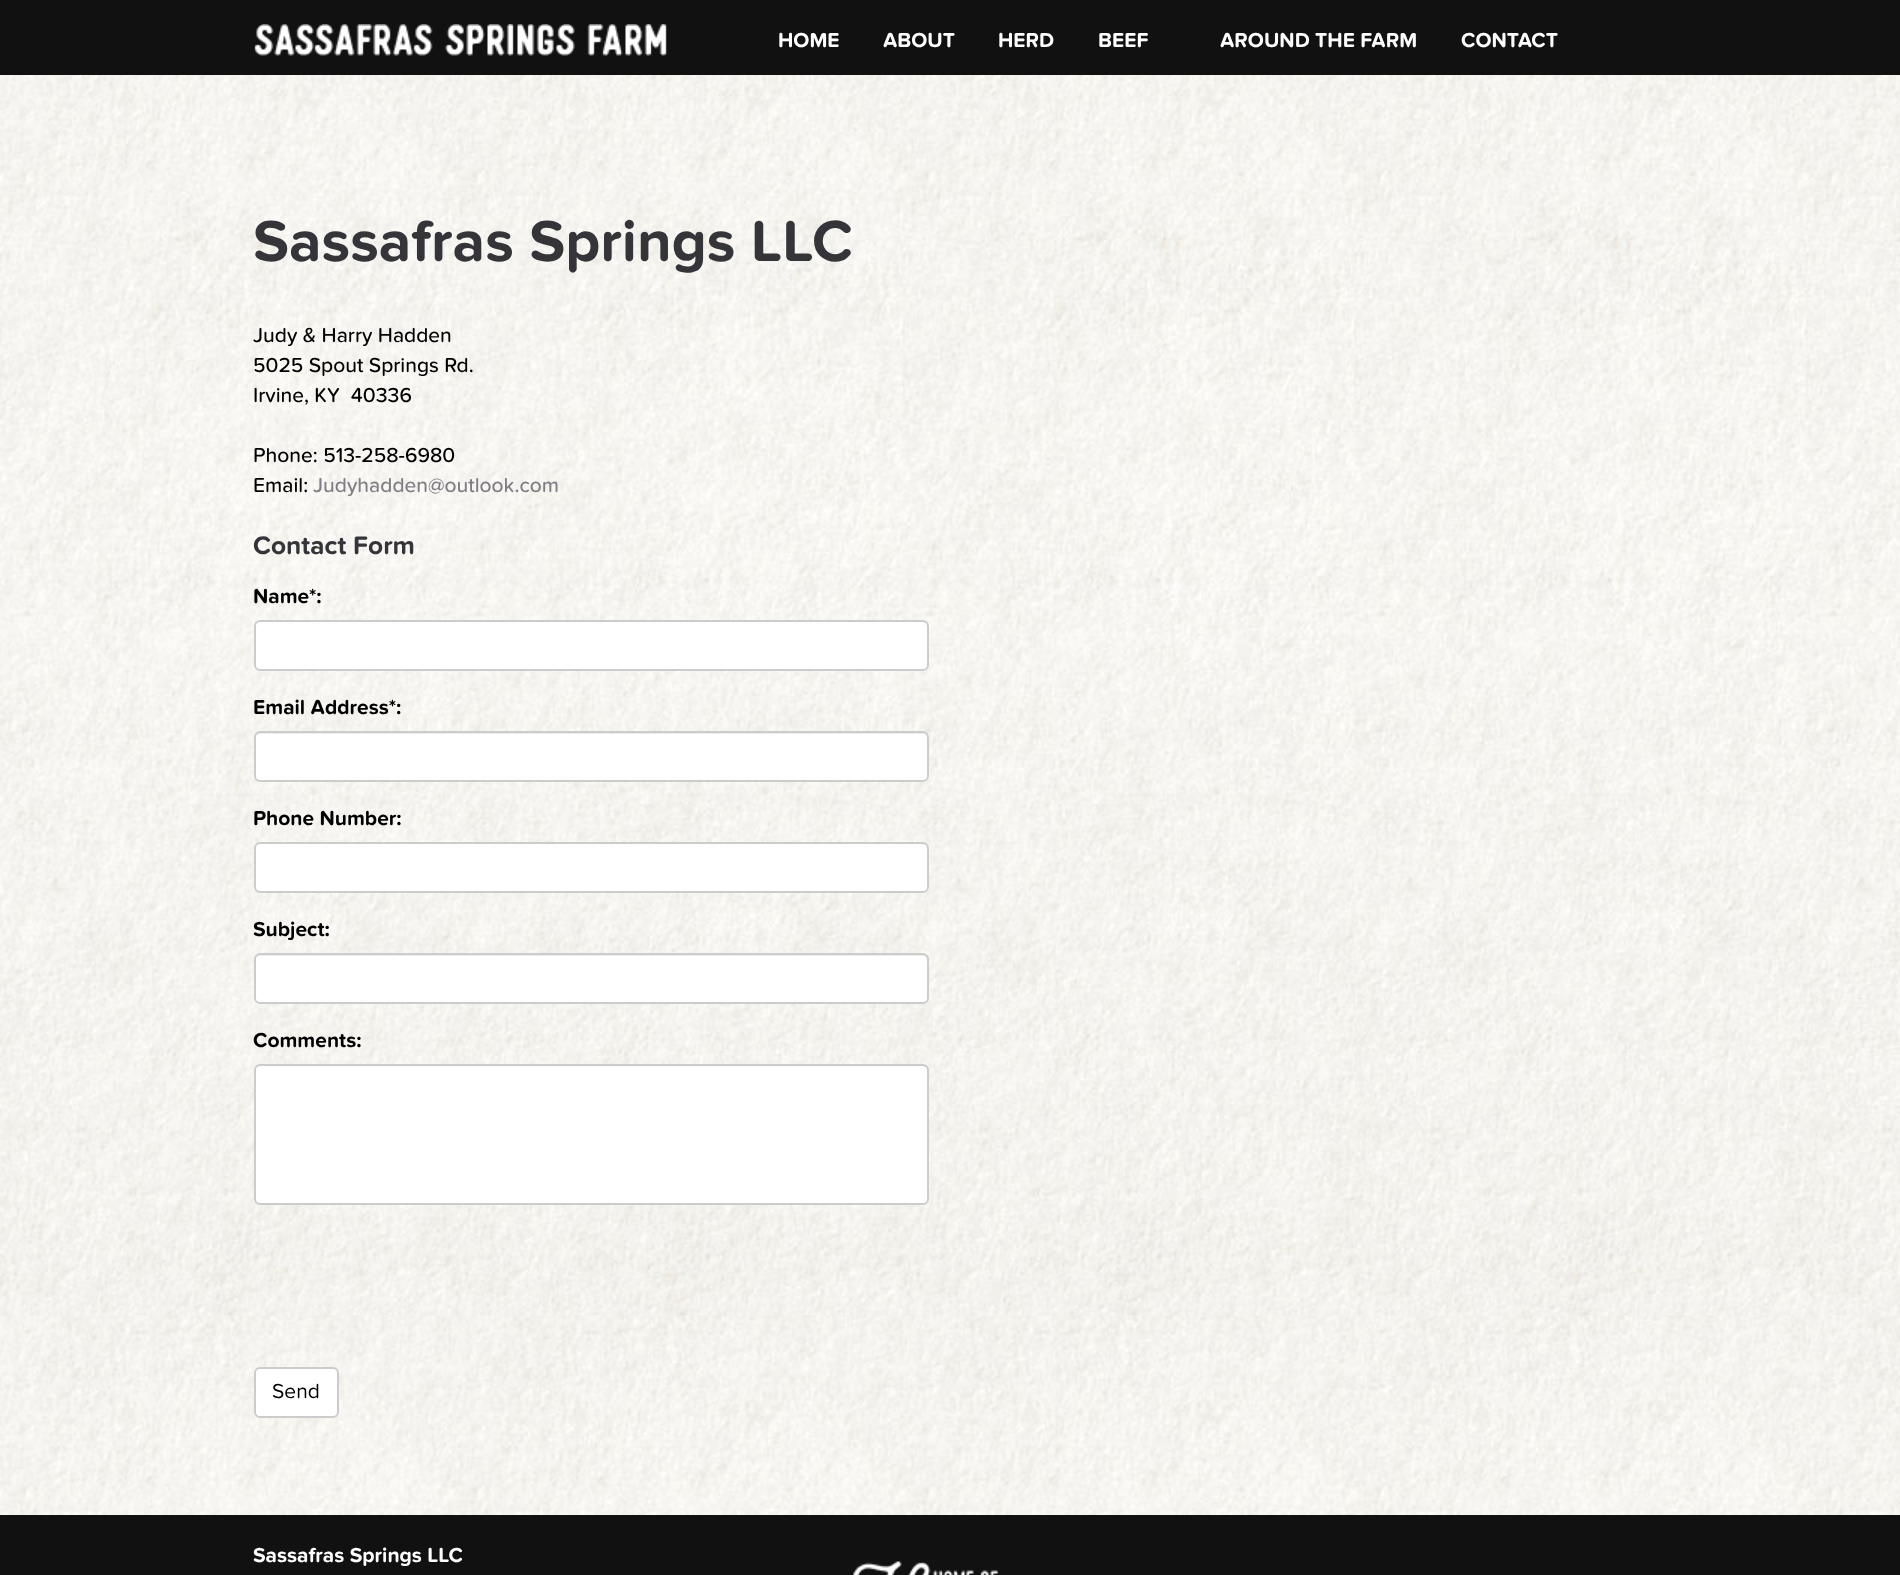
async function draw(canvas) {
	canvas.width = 1900;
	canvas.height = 1575;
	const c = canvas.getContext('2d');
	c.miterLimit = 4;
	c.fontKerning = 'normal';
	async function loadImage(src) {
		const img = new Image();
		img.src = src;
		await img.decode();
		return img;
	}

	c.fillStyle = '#fff';
	c.fillRect(0, 0, 1900, 1575);
	c.drawImage(await loadImage('img1.png'), 0, 75, 1900, 1440);
	c.fillStyle = '#111';
	c.fillRect(0, 0, 1900, 75);
	c.drawImage(await loadImage('img2.png'), 254, 24, 413, 32);
	c.font = 'bold 21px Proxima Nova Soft';
	c.fillStyle = '#fff';
	for (const [text, x, y] of [
		['HOME', 778, 47],
		['ABOUT', 883, 47],
		['HERD', 998, 47],
		['BEEF', 1098, 47],
		['AROUND THE FARM', 1220, 47],
		['CONTACT', 1461, 47],
	]) {
		c.fillText(text, x, y);
	}
	c.font = 'bold 60px Proxima Nova Soft';
	c.fillStyle = '#353439';
	c.fillText('Sassafras Springs LLC', 253, 261);
	c.font = '500 21px Proxima Nova Soft';
	c.fillStyle = '#000';
	for (const [text, x, y] of [
		['Judy & Harry Hadden', 253, 342],
		['5025 Spout Springs Rd.', 253, 372],
		['Irvine, KY  40336', 253, 402],
		['Phone: 513-258-6980', 253, 462],
		['Email:', 253, 492],
	]) {
		c.fillText(text, x, y);
	}
	c.fillStyle = '#7f7e85';
	c.fillText('Judyhadden@outlook.com', 313, 492);
	c.font = 'bold 26.25px Proxima Nova Soft';
	c.fillStyle = '#353439';
	c.fillText('Contact Form', 253, 554);
	c.font = 'bold 21px Proxima Nova Soft';
	c.fillStyle = '#000';
	c.fillText('Name*:', 253, 603);
	c.fillStyle = '#fff';
	c.beginPath();
	c.roundRect(254, 620, 675, 51, 6);
	c.fill();
	c.fillStyle = '#ececec';
	c.beginPath();
	c.moveTo(260, 622);
	c.lineTo(922, 622);
	c.bezierCurveTo(925, 622, 927, 625, 927, 627);
	c.lineTo(927, 626);
	c.bezierCurveTo(927, 623, 925, 621, 922, 621);
	c.lineTo(260, 621);
	c.bezierCurveTo(257, 621, 255, 623, 255, 626);
	c.lineTo(255, 627);
	c.bezierCurveTo(255, 625, 257, 622, 260, 622);
	c.closePath();
	c.fill();
	c.beginPath();
	c.roundRect(255, 621, 673, 49, 5);
	c.strokeStyle = '#ccc';
	c.lineWidth = 2;
	c.stroke();
	c.fillStyle = '#000';
	c.fillText('Email Address*:', 253, 714);
	c.fillStyle = '#fff';
	c.beginPath();
	c.roundRect(254, 731, 675, 51, 6);
	c.fill();
	c.fillStyle = '#ececec';
	c.beginPath();
	c.moveTo(260, 734);
	c.lineTo(922, 734);
	c.bezierCurveTo(925, 734, 927, 736, 927, 738);
	c.lineTo(927, 737);
	c.bezierCurveTo(927, 734, 925, 732, 922, 732);
	c.lineTo(260, 732);
	c.bezierCurveTo(257, 732, 255, 734, 255, 737);
	c.lineTo(255, 738);
	c.bezierCurveTo(255, 736, 257, 734, 260, 734);
	c.closePath();
	c.fill();
	c.beginPath();
	c.roundRect(255, 732, 673, 49, 5);
	c.stroke();
	c.fillStyle = '#000';
	c.fillText('Phone Number:', 253, 825);
	c.fillStyle = '#fff';
	c.beginPath();
	c.roundRect(254, 842, 675, 51, 6);
	c.fill();
	c.fillStyle = '#ececec';
	c.beginPath();
	c.moveTo(260, 844);
	c.lineTo(922, 844);
	c.bezierCurveTo(925, 844, 927, 847, 927, 849);
	c.lineTo(927, 848);
	c.bezierCurveTo(927, 845, 925, 843, 922, 843);
	c.lineTo(260, 843);
	c.bezierCurveTo(257, 843, 255, 845, 255, 848);
	c.lineTo(255, 849);
	c.bezierCurveTo(255, 847, 257, 844, 260, 844);
	c.closePath();
	c.fill();
	c.beginPath();
	c.roundRect(255, 843, 673, 49, 5);
	c.stroke();
	c.fillStyle = '#000';
	c.fillText('Subject:', 253, 936);
	c.fillStyle = '#fff';
	c.beginPath();
	c.roundRect(254, 953, 675, 51, 6);
	c.fill();
	c.fillStyle = '#ececec';
	c.beginPath();
	c.moveTo(260, 956);
	c.lineTo(922, 956);
	c.bezierCurveTo(925, 956, 927, 958, 927, 960);
	c.lineTo(927, 959);
	c.bezierCurveTo(927, 956, 925, 954, 922, 954);
	c.lineTo(260, 954);
	c.bezierCurveTo(257, 954, 255, 956, 255, 959);
	c.lineTo(255, 960);
	c.bezierCurveTo(255, 958, 257, 956, 260, 956);
	c.closePath();
	c.fill();
	c.beginPath();
	c.roundRect(255, 954, 673, 49, 5);
	c.stroke();
	c.fillStyle = '#000';
	c.fillText('Comments:', 253, 1047);
	c.fillStyle = '#fff';
	c.beginPath();
	c.roundRect(254, 1064, 675, 141, 6);
	c.fill();
	c.fillStyle = '#ececec';
	c.beginPath();
	c.moveTo(260, 1066);
	c.lineTo(922, 1066);
	c.bezierCurveTo(925, 1066, 927, 1069, 927, 1071);
	c.lineTo(927, 1070);
	c.bezierCurveTo(927, 1067, 925, 1065, 922, 1065);
	c.lineTo(260, 1065);
	c.bezierCurveTo(257, 1065, 255, 1067, 255, 1070);
	c.lineTo(255, 1071);
	c.bezierCurveTo(255, 1069, 257, 1066, 260, 1066);
	c.closePath();
	c.fill();
	c.beginPath();
	c.roundRect(255, 1065, 673, 139, 5);
	c.stroke();
	c.fillStyle = '#fff';
	c.beginPath();
	c.roundRect(255, 1368, 83, 49, 5);
	c.fill();
	c.stroke();
	c.font = '21px Proxima Nova Soft';
	c.fillStyle = '#000';
	c.fillText('Send', 272, 1398);
	c.fillStyle = '#111';
	c.fillRect(0, 1515, 1900, 60);
	c.font = 'bold 21px Proxima Nova Soft';
	c.fillStyle = '#fff';
	c.fillText('Sassafras Springs LLC', 253, 1562);
	c.drawImage(await loadImage('img3.png'), 853, 1561, 146, 14);
}

draw(document.querySelector('canvas'));
